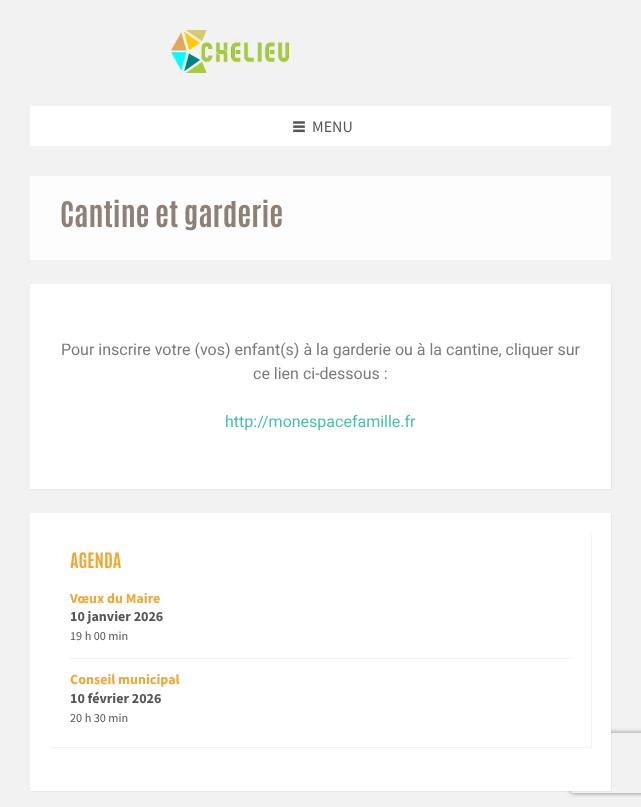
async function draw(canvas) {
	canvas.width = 641;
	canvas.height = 807;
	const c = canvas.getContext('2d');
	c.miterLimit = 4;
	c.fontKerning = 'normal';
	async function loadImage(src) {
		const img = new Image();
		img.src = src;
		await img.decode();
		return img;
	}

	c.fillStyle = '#f2f2f2';
	c.fillRect(0, 0, 641, 807);
	c.drawImage(await loadImage('img1.png'), 171, 30, 118, 43);
	c.fillStyle = '#fff';
	c.fillRect(30, 106, 581, 40);
	c.drawImage(await loadImage('img2.png'), 293, 121, 12, 12);
	c.font = '16px Source Sans Pro';
	c.fillStyle = '#565656';
	c.fillText('MENU', 312, 132);
	c.fillStyle = '#fdfdfd';
	c.fillRect(30, 176, 581, 84);
	c.font = 'bold 30px Antonio';
	c.fillStyle = '#8f8075';
	c.fillText('Cantine et garderie', 60, 227);
	c.fillStyle = '#e6e6e6';
	c.beginPath();
	c.moveTo(31, 489);
	c.lineTo(31, 490);
	c.lineTo(612, 490);
	c.lineTo(612, 285);
	c.lineTo(611, 285);
	c.lineTo(611, 489);
	c.closePath();
	c.fill();
	c.fillStyle = '#fff';
	c.fillRect(30, 284, 581, 205);
	c.font = '16px Roboto';
	c.fillStyle = '#7a7a7a';
	c.fillText('Pour inscrire votre (vos) enfant(s) à la garderie ou à la cantine, cliquer sur', 61, 355);
	c.fillText('ce lien ci-dessous :', 253, 379);
	c.fillStyle = '#44c1ac';
	c.fillText('http://monespacefamille.fr', 225, 427);
	c.save();
	c.beginPath();
	c.moveTo(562, 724);
	c.lineTo(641, 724);
	c.lineTo(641, 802);
	c.lineTo(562, 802);
	c.closePath();
	c.moveTo(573, 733);
	c.lineTo(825, 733);
	c.bezierCurveTo(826, 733, 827, 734, 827, 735);
	c.lineTo(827, 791);
	c.bezierCurveTo(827, 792, 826, 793, 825, 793);
	c.lineTo(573, 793);
	c.bezierCurveTo(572, 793, 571, 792, 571, 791);
	c.lineTo(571, 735);
	c.bezierCurveTo(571, 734, 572, 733, 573, 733);
	c.closePath();
	c.clip('evenodd');
	c.fillStyle = '#808080';
	c.filter = 'blur(2.5px)';
	c.beginPath();
	c.roundRect(571, 733, 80, 60, 2);
	c.fill();
	c.filter = 'none';
	c.restore();
	c.fillStyle = '#0000000d';
	c.beginPath();
	c.moveTo(31, 791);
	c.lineTo(31, 792);
	c.lineTo(612, 792);
	c.lineTo(612, 514);
	c.lineTo(611, 514);
	c.lineTo(611, 791);
	c.closePath();
	c.fill();
	c.fillStyle = '#fff';
	c.fillRect(30, 513, 581, 278);
	c.fillStyle = '#f2f2f2';
	c.beginPath();
	c.moveTo(51, 747);
	c.lineTo(51, 748);
	c.lineTo(592, 748);
	c.lineTo(592, 534);
	c.lineTo(591, 534);
	c.lineTo(591, 747);
	c.closePath();
	c.fill();
	c.font = 'bold 18px Antonio';
	c.fillStyle = '#efa835';
	c.fillText('AGENDA', 70, 568);
	c.font = 'bold 14px Source Sans Pro';
	c.fillText('Vœux du Maire', 70, 603);
	c.fillStyle = '#565656';
	c.fillText('10 janvier 2026', 70, 621);
	c.font = '12.25px Source Sans Pro';
	c.fillText('19 h 00 min', 70, 640);
	c.fillStyle = '#f0f0f0';
	c.fillRect(70, 658, 501, 1);
	c.font = 'bold 14px Source Sans Pro';
	c.fillStyle = '#efa835';
	c.fillText('Conseil municipal', 70, 684);
	c.fillStyle = '#565656';
	c.fillText('10 février 2026', 70, 703);
	c.font = '12.25px Source Sans Pro';
	c.fillText('20 h 30 min', 70, 722);
}

draw(document.querySelector('canvas'));
